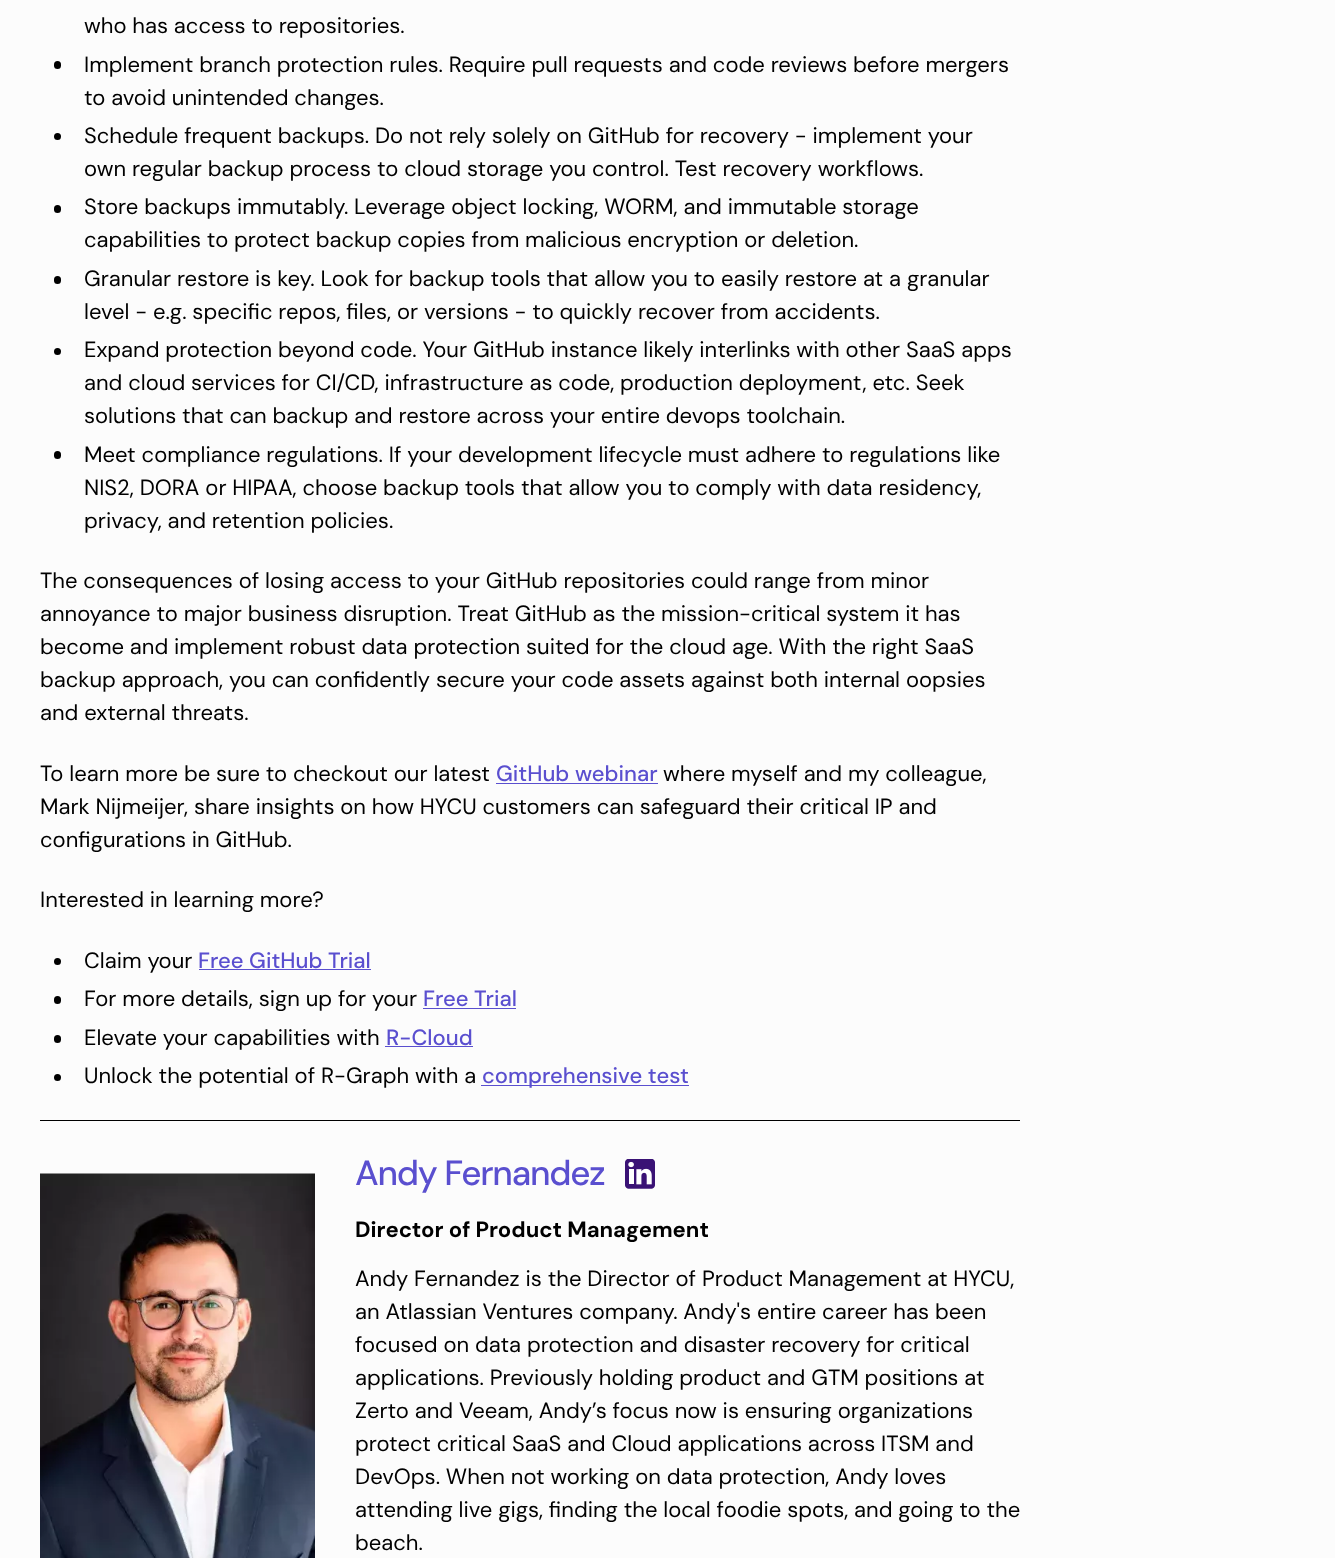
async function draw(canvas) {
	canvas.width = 1335;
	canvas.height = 1558;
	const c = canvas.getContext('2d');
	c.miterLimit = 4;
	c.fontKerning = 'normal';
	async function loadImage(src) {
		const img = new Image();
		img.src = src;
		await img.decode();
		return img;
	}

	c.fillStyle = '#fcfcfc';
	c.fillRect(0, 0, 1335, 1558);
	c.font = '22px DM Sans';
	c.fillStyle = '#000';
	c.fillText('who has access to repositories.', 84, 33);
	c.beginPath();
	c.roundRect(54, 61, 7, 8, 3.5);
	c.fill();
	c.fillText('Implement branch protection rules. Require pull requests and code reviews before mergers', 84, 72);
	c.fillText('to avoid unintended changes.', 84, 105);
	c.beginPath();
	c.arc(57.5, 136.5, 3.5, 0, 2 * Math.PI);
	c.fill();
	c.fillText('Schedule frequent backups. Do not rely solely on GitHub for recovery - implement your', 84, 143);
	c.fillText('own regular backup process to cloud storage you control. Test recovery workflows.', 84, 176);
	c.beginPath();
	c.roundRect(54, 205, 7, 8, 3.5);
	c.fill();
	c.fillText('Store backups immutably. Leverage object locking, WORM, and immutable storage', 84, 214);
	c.fillText('capabilities to protect backup copies from malicious encryption or deletion.', 84, 247);
	c.beginPath();
	c.roundRect(54, 276, 7, 8, 3.5);
	c.fill();
	c.fillText('Granular restore is key. Look for backup tools that allow you to easily restore at a granular', 84, 286);
	c.fillText('level - e.g. specific repos, files, or versions - to quickly recover from accidents.', 84, 319);
	c.beginPath();
	c.arc(57.5, 351.5, 3.5, 0, 2 * Math.PI);
	c.fill();
	for (const [text, x, y] of [
		['Expand protection beyond code. Your GitHub instance likely interlinks with other SaaS apps', 84, 357],
		['and cloud services for CI/CD, infrastructure as code, production deployment, etc. Seek', 84, 390],
		['solutions that can backup and restore across your entire devops toolchain.', 84, 423],
	]) {
		c.fillText(text, x, y);
	}
	c.beginPath();
	c.roundRect(54, 451, 7, 8, 3.5);
	c.fill();
	for (const [text, x, y] of [
		['Meet compliance regulations. If your development lifecycle must adhere to regulations like', 84, 462],
		['NIS2, DORA or HIPAA, choose backup tools that allow you to comply with data residency,', 84, 495],
		['privacy, and retention policies.', 84, 528],
		['The consequences of losing access to your GitHub repositories could range from minor', 40, 588],
		['annoyance to major business disruption. Treat GitHub as the mission-critical system it has', 40, 621],
		['become and implement robust data protection suited for the cloud age. With the right SaaS', 40, 654],
		['backup approach, you can confidently secure your code assets against both internal oopsies', 40, 687],
		['and external threats.', 40, 720],
		['To learn more be sure to checkout our latest', 40, 781],
	]) {
		c.fillText(text, x, y);
	}
	c.font = '500 22px DM Sans';
	c.fillStyle = '#5a4fcf';
	c.fillText('GitHub webinar', 496, 781);
	c.fillRect(496, 783, 162, 1);
	c.font = '22px DM Sans';
	c.fillStyle = '#000';
	for (const [text, x, y] of [
		['where myself and my colleague,', 663, 781],
		['Mark Nijmeijer, share insights on how HYCU customers can safeguard their critical IP and', 40, 814],
		['configurations in GitHub.', 40, 847],
		['Interested in learning more?', 40, 907],
	]) {
		c.fillText(text, x, y);
	}
	c.beginPath();
	c.arc(57.5, 961.5, 3.5, 0, 2 * Math.PI);
	c.fill();
	c.fillText('Claim your', 84, 968);
	c.font = '500 22px DM Sans';
	c.fillStyle = '#5a4fcf';
	c.fillText('Free GitHub Trial', 198, 968);
	c.fillRect(199, 969, 172, 1);
	c.fillStyle = '#000';
	c.beginPath();
	c.roundRect(54, 996, 7, 8, 3.5);
	c.fill();
	c.font = '22px DM Sans';
	c.fillText('For more details, sign up for your', 84, 1006);
	c.font = '500 22px DM Sans';
	c.fillStyle = '#5a4fcf';
	c.fillText('Free Trial', 423, 1006);
	c.fillRect(423, 1008, 93, 1);
	c.fillStyle = '#000';
	c.beginPath();
	c.roundRect(54, 1035, 7, 8, 3.5);
	c.fill();
	c.font = '22px DM Sans';
	c.fillText('Elevate your capabilities with', 84, 1045);
	c.font = '500 22px DM Sans';
	c.fillStyle = '#5a4fcf';
	c.fillText('R-Cloud', 386, 1045);
	c.fillRect(385, 1046, 88, 1);
	c.fillStyle = '#000';
	c.beginPath();
	c.arc(57.5, 1077.5, 3.5, 0, 2 * Math.PI);
	c.fill();
	c.font = '22px DM Sans';
	c.fillText('Unlock the potential of R-Graph with a', 84, 1083);
	c.fillStyle = '#5a4fcf';
	c.fillRect(481, 1085, 208, 1);
	c.font = '500 22px DM Sans';
	c.fillText('comprehensive test', 482, 1083);
	c.fillStyle = '#000';
	c.fillRect(40, 1120, 980, 1);
	c.drawImage(await loadImage('img1.png'), 40, 1173, 275, 385);
	c.letterSpacing = '-1.25px';
	c.font = '500 35px DM Sans';
	c.fillStyle = '#5a4fcf';
	c.fillText('Andy Fernandez', 355, 1185);
	c.drawImage(await loadImage('img2.png'), 625, 1159, 30, 30);
	c.letterSpacing = '0px';
	c.font = 'bold 22px DM Sans';
	c.fillStyle = '#000';
	c.fillText('Director of Product Management', 355, 1237);
	c.font = '22px DM Sans';
	for (const [text, x, y] of [
		['Andy Fernandez is the Director of Product Management at HYCU,', 355, 1286],
		['an Atlassian Ventures company. Andy\'s entire career has been', 355, 1319],
		['focused on data protection and disaster recovery for critical', 355, 1352],
		['applications. Previously holding product and GTM positions at', 355, 1385],
		['Zerto and Veeam, Andy’s focus now is ensuring organizations', 355, 1418],
		['protect critical SaaS and Cloud applications across ITSM and', 355, 1451],
		['DevOps. When not working on data protection, Andy loves', 355, 1484],
		['attending live gigs, finding the local foodie spots, and going to the', 355, 1517],
		['beach.', 355, 1550],
	]) {
		c.fillText(text, x, y);
	}
}

draw(document.querySelector('canvas'));
